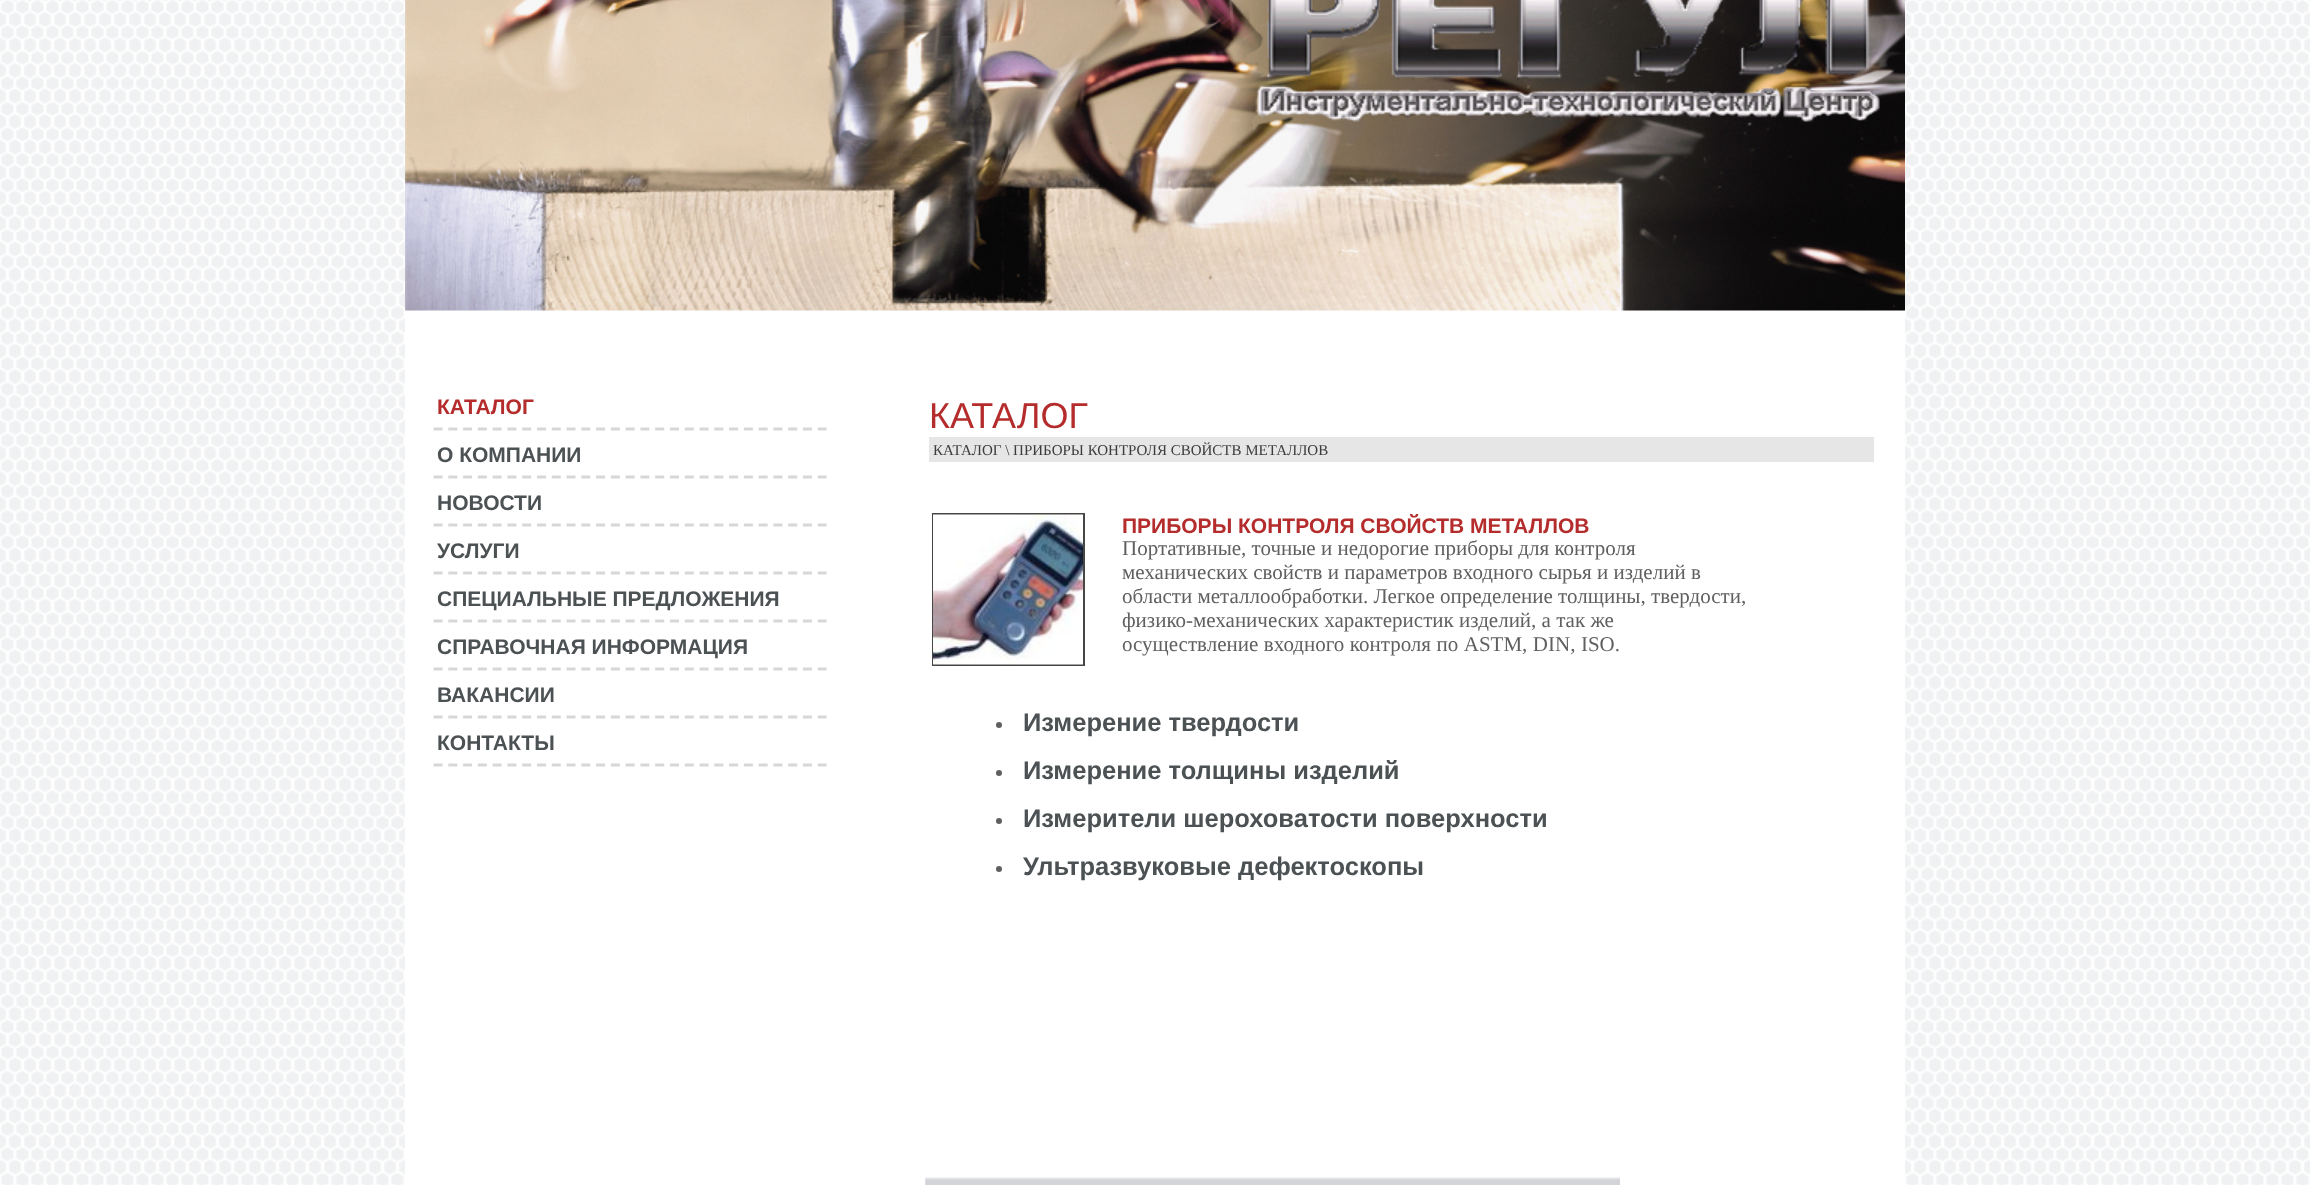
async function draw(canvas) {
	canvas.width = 2310;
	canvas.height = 1185;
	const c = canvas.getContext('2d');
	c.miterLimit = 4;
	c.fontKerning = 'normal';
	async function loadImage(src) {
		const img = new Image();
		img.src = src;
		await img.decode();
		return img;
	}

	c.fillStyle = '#fff';
	c.fillRect(0, 0, 2310, 1185);
	c.drawImage(await loadImage('img1.png'), 0, 0, 2310, 1185);
	c.fillRect(405, 310, 1500, 875);
	c.drawImage(await loadImage('img2.png'), 405, 0, 1500, 311);
	c.beginPath();
	c.moveTo(433.5, 429);
	c.lineTo(826.5, 429);
	c.strokeStyle = '#d7d7d7';
	c.lineWidth = 3;
	c.setLineDash([9, 5.78]);
	c.stroke();
	c.font = 'bold 21px Liberation Sans';
	c.fillStyle = '#b52c2c';
	c.fillText('КАТАЛОГ', 437, 414);
	c.beginPath();
	c.moveTo(433.5, 477);
	c.lineTo(826.5, 477);
	c.stroke();
	c.fillStyle = '#4c5154';
	c.fillText('О КОМПАНИИ', 437, 462);
	c.beginPath();
	c.moveTo(433.5, 525);
	c.lineTo(826.5, 525);
	c.stroke();
	c.fillText('НОВОСТИ', 437, 510);
	c.beginPath();
	c.moveTo(433.5, 573);
	c.lineTo(826.5, 573);
	c.stroke();
	c.fillText('УСЛУГИ', 437, 558);
	c.beginPath();
	c.moveTo(433.5, 621);
	c.lineTo(826.5, 621);
	c.stroke();
	c.fillText('СПЕЦИАЛЬНЫЕ ПРЕДЛОЖЕНИЯ', 437, 606);
	c.beginPath();
	c.moveTo(433.5, 669);
	c.lineTo(826.5, 669);
	c.stroke();
	c.fillText('СПРАВОЧНАЯ ИНФОРМАЦИЯ', 437, 654);
	c.beginPath();
	c.moveTo(433.5, 717);
	c.lineTo(826.5, 717);
	c.stroke();
	c.fillText('ВАКАНСИИ', 437, 702);
	c.beginPath();
	c.moveTo(433.5, 765);
	c.lineTo(826.5, 765);
	c.stroke();
	c.fillText('КОНТАКТЫ', 437, 750);
	c.font = '36px Liberation Sans';
	c.fillStyle = '#b52c2c';
	c.fillText('КАТАЛОГ', 929, 428);
	c.fillStyle = '#e6e6e6';
	c.fillRect(929, 437, 945, 25);
	c.font = '15px Liberation Serif';
	c.fillStyle = '#3c3c3c';
	c.fillText('КАТАЛОГ \\ ПРИБОРЫ КОНТРОЛЯ СВОЙСТВ МЕТАЛЛОВ', 933, 455);
	c.strokeStyle = '#464645';
	c.lineWidth = 2;
	c.setLineDash([]);
	c.strokeRect(933, 514, 151, 151);
	c.drawImage(await loadImage('img3.png'), 933, 514, 150, 151);
	c.font = 'bold 21px Liberation Sans';
	c.fillStyle = '#b52c2c';
	c.fillText('ПРИБОРЫ КОНТРОЛЯ СВОЙСТВ МЕТАЛЛОВ', 1122, 533);
	c.font = '21px Liberation Serif';
	c.fillStyle = '#5f5f5f';
	for (const [text, x, y] of [
		['Портативные, точные и недорогие приборы для контроля', 1122, 555],
		['механических свойств и параметров входного сырья и изделий в', 1122, 579],
		['области металлообработки. Легкое определение толщины, твердости,', 1122, 603],
		['физико-механических характеристик изделий, а так же', 1122, 627],
	]) {
		c.fillText(text, x, y);
	}
	c.wordSpacing = '0.25px';
	c.fillText('осуществление входного контроля по ASTM, DIN, ISO.', 1122, 651);
	c.beginPath();
	c.arc(999, 725, 3, 0, 2 * Math.PI);
	c.fill();
	c.wordSpacing = '0px';
	c.font = 'bold 25.5px Liberation Sans';
	c.fillStyle = '#4c5154';
	c.fillText('Измерение твердости', 1023, 731);
	c.fillStyle = '#5f5f5f';
	c.beginPath();
	c.arc(999, 773, 3, 0, 2 * Math.PI);
	c.fill();
	c.fillStyle = '#4c5154';
	c.fillText('Измерение толщины изделий', 1023, 779);
	c.fillStyle = '#5f5f5f';
	c.beginPath();
	c.arc(999, 821, 3, 0, 2 * Math.PI);
	c.fill();
	c.fillStyle = '#4c5154';
	c.fillText('Измерители шероховатости поверхности', 1023, 827);
	c.fillStyle = '#5f5f5f';
	c.beginPath();
	c.arc(999, 869, 3, 0, 2 * Math.PI);
	c.fill();
	c.fillStyle = '#4c5154';
	c.fillText('Ультразвуковые дефектоскопы', 1023, 875);
	c.drawImage(await loadImage('img4.png'), 925, 1177, 695, 8);
}

draw(document.querySelector('canvas'));
